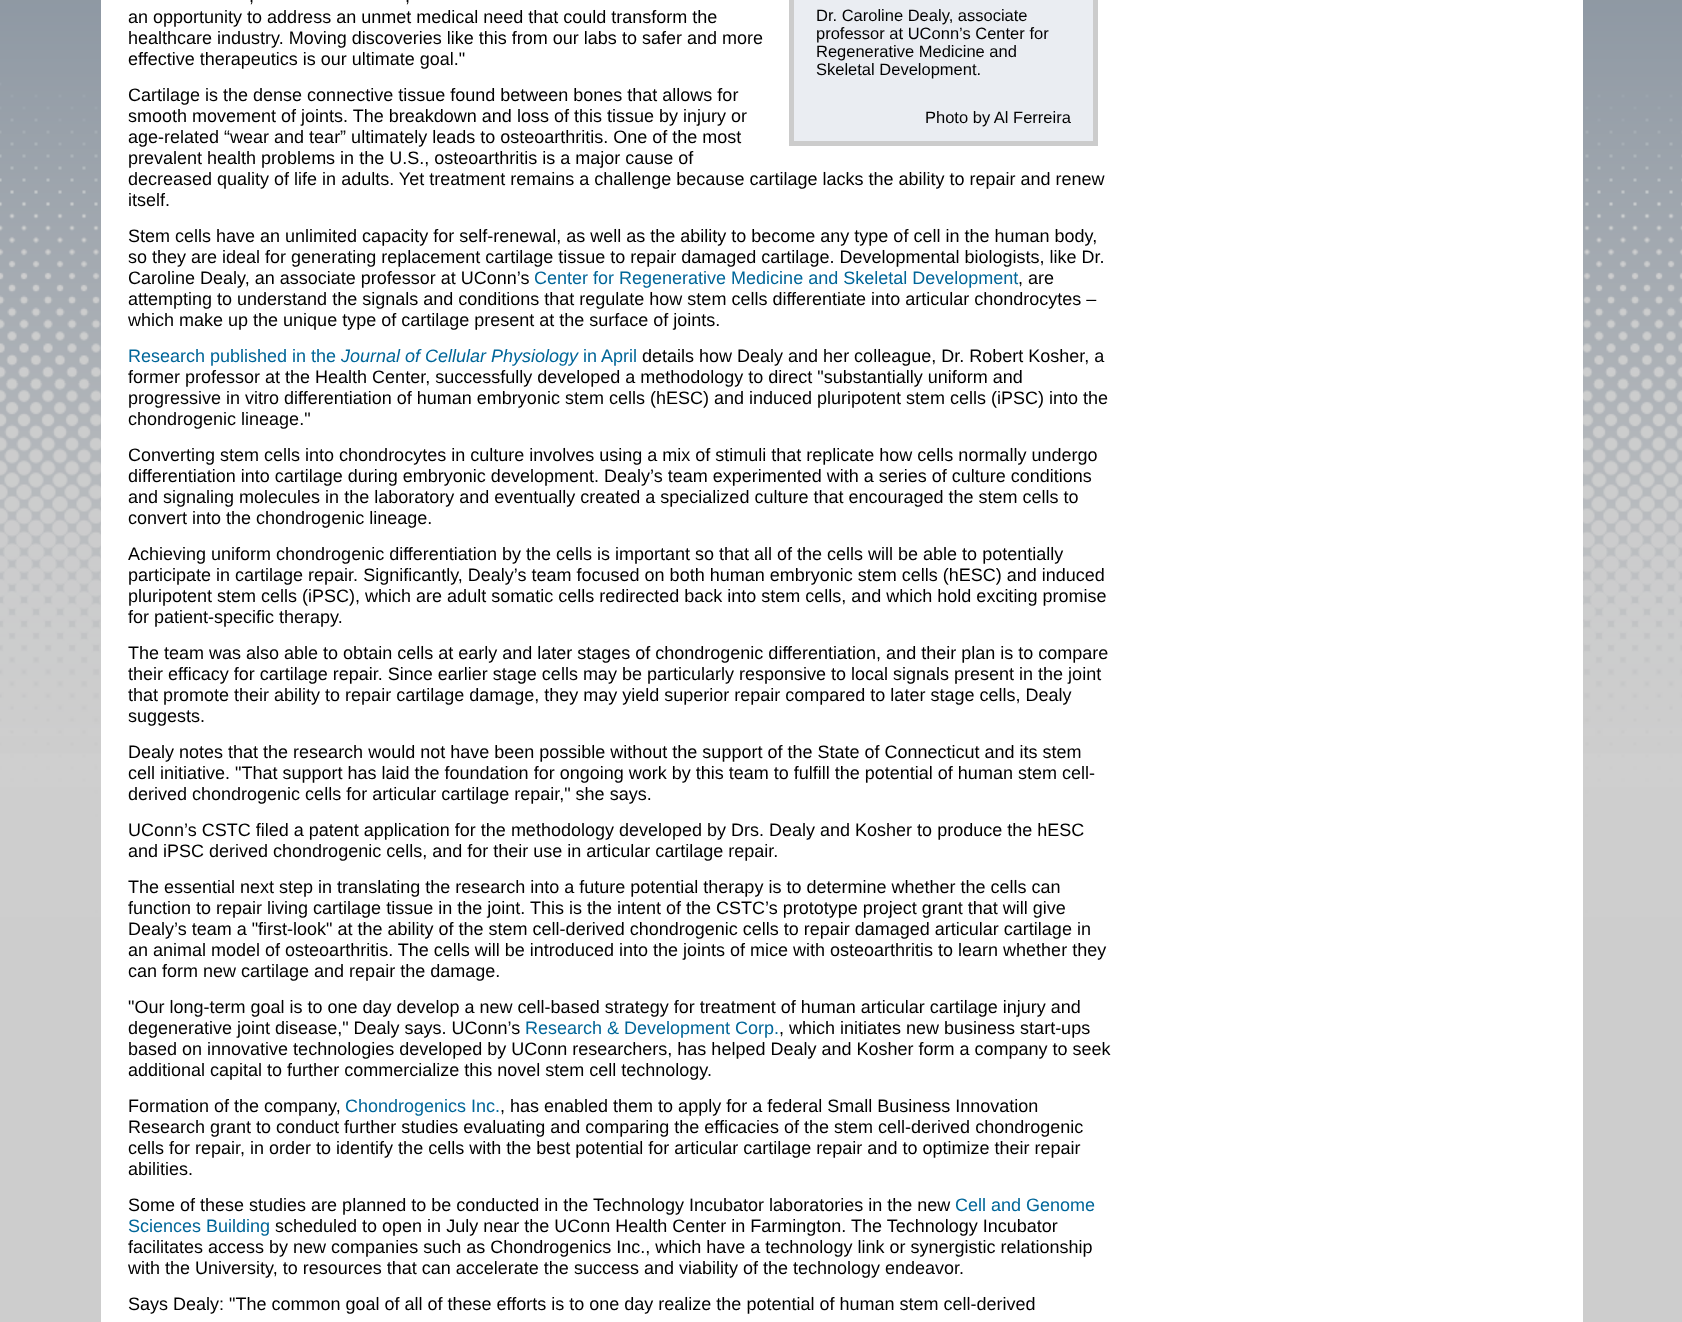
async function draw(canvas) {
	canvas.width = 1682;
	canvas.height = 1322;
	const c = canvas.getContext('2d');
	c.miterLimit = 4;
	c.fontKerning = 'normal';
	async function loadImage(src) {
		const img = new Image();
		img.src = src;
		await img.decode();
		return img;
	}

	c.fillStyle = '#fff';
	c.fillRect(0, 0, 1682, 1322);
	c.drawImage(await loadImage('img1.png'), 0, 0, 1682, 1322);
	c.fillRect(101, 0, 1482, 1322);
	c.font = '18px Liberation Sans';
	c.fillStyle = '#000';
	for (const [text, x, y] of [
		[',', 249, 2],
		[',', 405, 2],
		['an opportunity to address an unmet medical need that could transform the', 128, 23],
		['healthcare industry. Moving discoveries like this from our labs to safer and more', 128, 44],
		['effective therapeutics is our ultimate goal."', 128, 65],
	]) {
		c.fillText(text, x, y);
	}
	c.fillStyle = '#eaedf2';
	c.beginPath();
	c.rect(791.5, -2.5, 304, 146);
	c.fill();
	c.strokeStyle = '#ccc';
	c.lineWidth = 5;
	c.stroke();
	c.font = '16.5px Liberation Sans';
	c.fillStyle = '#000';
	for (const [text, x, y] of [
		['Dr. Caroline Dealy, associate', 816, 21],
		['professor at UConn’s Center for', 816, 39],
		['Regenerative Medicine and', 816, 57],
		['Skeletal Development.', 816, 75],
		['Photo by Al Ferreira', 925, 123],
	]) {
		c.fillText(text, x, y);
	}
	c.font = '18px Liberation Sans';
	for (const [text, x, y] of [
		['Cartilage is the dense connective tissue found between bones that allows for', 128, 101],
		['smooth movement of joints. The breakdown and loss of this tissue by injury or', 128, 122],
		['age-related “wear and tear” ultimately leads to osteoarthritis. One of the most', 128, 143],
		['prevalent health problems in the U.S., osteoarthritis is a major cause of', 128, 164],
		['decreased quality of life in adults. Yet treatment remains a challenge because cartilage lacks the ability to repair and renew', 128, 185],
		['itself.', 128, 206],
		['Stem cells have an unlimited capacity for self-renewal, as well as the ability to become any type of cell in the human body,', 128, 242],
		['so they are ideal for generating replacement cartilage tissue to repair damaged cartilage. Developmental biologists, like Dr.', 128, 263],
		['Caroline Dealy, an associate professor at UConn’s', 128, 284],
	]) {
		c.fillText(text, x, y);
	}
	c.fillStyle = '#069';
	c.fillText('Center for Regenerative Medicine and Skeletal Development', 534, 284);
	c.fillStyle = '#000';
	for (const [text, x, y] of [
		[', are', 1018, 284],
		['attempting to understand the signals and conditions that regulate how stem cells differentiate into articular chondrocytes –', 128, 305],
		['which make up the unique type of cartilage present at the surface of joints.', 128, 326],
	]) {
		c.fillText(text, x, y);
	}
	c.fillStyle = '#069';
	c.fillText('Research published in the', 128, 362);
	c.font = 'italic 18px Liberation Sans';
	c.fillText('Journal of Cellular Physiology', 341, 362);
	c.font = '18px Liberation Sans';
	c.fillText('in April', 583, 362);
	c.fillStyle = '#000';
	for (const [text, x, y] of [
		['details how Dealy and her colleague, Dr. Robert Kosher, a', 642, 362],
		['former professor at the Health Center, successfully developed a methodology to direct "substantially uniform and', 128, 383],
		['progressive in vitro differentiation of human embryonic stem cells (hESC) and induced pluripotent stem cells (iPSC) into the', 128, 404],
		['chondrogenic lineage."', 128, 425],
		['Converting stem cells into chondrocytes in culture involves using a mix of stimuli that replicate how cells normally undergo', 128, 461],
		['differentiation into cartilage during embryonic development. Dealy’s team experimented with a series of culture conditions', 128, 482],
		['and signaling molecules in the laboratory and eventually created a specialized culture that encouraged the stem cells to', 128, 503],
		['convert into the chondrogenic lineage.', 128, 524],
		['Achieving uniform chondrogenic differentiation by the cells is important so that all of the cells will be able to potentially', 128, 560],
		['participate in cartilage repair. Significantly, Dealy’s team focused on both human embryonic stem cells (hESC) and induced', 128, 581],
		['pluripotent stem cells (iPSC), which are adult somatic cells redirected back into stem cells, and which hold exciting promise', 128, 602],
		['for patient-specific therapy.', 128, 623],
		['The team was also able to obtain cells at early and later stages of chondrogenic differentiation, and their plan is to compare', 128, 659],
		['their efficacy for cartilage repair. Since earlier stage cells may be particularly responsive to local signals present in the joint', 128, 680],
		['that promote their ability to repair cartilage damage, they may yield superior repair compared to later stage cells, Dealy', 128, 701],
		['suggests.', 128, 722],
		['Dealy notes that the research would not have been possible without the support of the State of Connecticut and its stem', 128, 758],
		['cell initiative. "That support has laid the foundation for ongoing work by this team to fulfill the potential of human stem cell-', 128, 779],
		['derived chondrogenic cells for articular cartilage repair," she says.', 128, 800],
		['UConn’s CSTC filed a patent application for the methodology developed by Drs. Dealy and Kosher to produce the hESC', 128, 836],
		['and iPSC derived chondrogenic cells, and for their use in articular cartilage repair.', 128, 857],
		['The essential next step in translating the research into a future potential therapy is to determine whether the cells can', 128, 893],
		['function to repair living cartilage tissue in the joint. This is the intent of the CSTC’s prototype project grant that will give', 128, 914],
		['Dealy’s team a "first-look" at the ability of the stem cell-derived chondrogenic cells to repair damaged articular cartilage in', 128, 935],
		['an animal model of osteoarthritis. The cells will be introduced into the joints of mice with osteoarthritis to learn whether they', 128, 956],
		['can form new cartilage and repair the damage.', 128, 977],
		['"Our long-term goal is to one day develop a new cell-based strategy for treatment of human articular cartilage injury and', 128, 1013],
		['degenerative joint disease," Dealy says. UConn’s', 128, 1034],
	]) {
		c.fillText(text, x, y);
	}
	c.fillStyle = '#069';
	c.fillText('Research & Development Corp.', 525, 1034);
	c.fillStyle = '#000';
	for (const [text, x, y] of [
		[', which initiates new business start-ups', 779, 1034],
		['based on innovative technologies developed by UConn researchers, has helped Dealy and Kosher form a company to seek', 128, 1055],
		['additional capital to further commercialize this novel stem cell technology.', 128, 1076],
		['Formation of the company,', 128, 1112],
	]) {
		c.fillText(text, x, y);
	}
	c.fillStyle = '#069';
	c.fillText('Chondrogenics Inc.', 345, 1112);
	c.fillStyle = '#000';
	for (const [text, x, y] of [
		[', has enabled them to apply for a federal Small Business Innovation', 500, 1112],
		['Research grant to conduct further studies evaluating and comparing the efficacies of the stem cell-derived chondrogenic', 128, 1133],
		['cells for repair, in order to identify the cells with the best potential for articular cartilage repair and to optimize their repair', 128, 1154],
		['abilities.', 128, 1175],
		['Some of these studies are planned to be conducted in the Technology Incubator laboratories in the new', 128, 1211],
	]) {
		c.fillText(text, x, y);
	}
	c.fillStyle = '#069';
	c.fillText('Cell and Genome', 955, 1211);
	c.fillText('Sciences Building', 128, 1232);
	c.fillStyle = '#000';
	for (const [text, x, y] of [
		['scheduled to open in July near the UConn Health Center in Farmington. The Technology Incubator', 275, 1232],
		['facilitates access by new companies such as Chondrogenics Inc., which have a technology link or synergistic relationship', 128, 1253],
		['with the University, to resources that can accelerate the success and viability of the technology endeavor.', 128, 1274],
		['Says Dealy: "The common goal of all of these efforts is to one day realize the potential of human stem cell-derived', 128, 1310],
	]) {
		c.fillText(text, x, y);
	}
}

draw(document.querySelector('canvas'));
